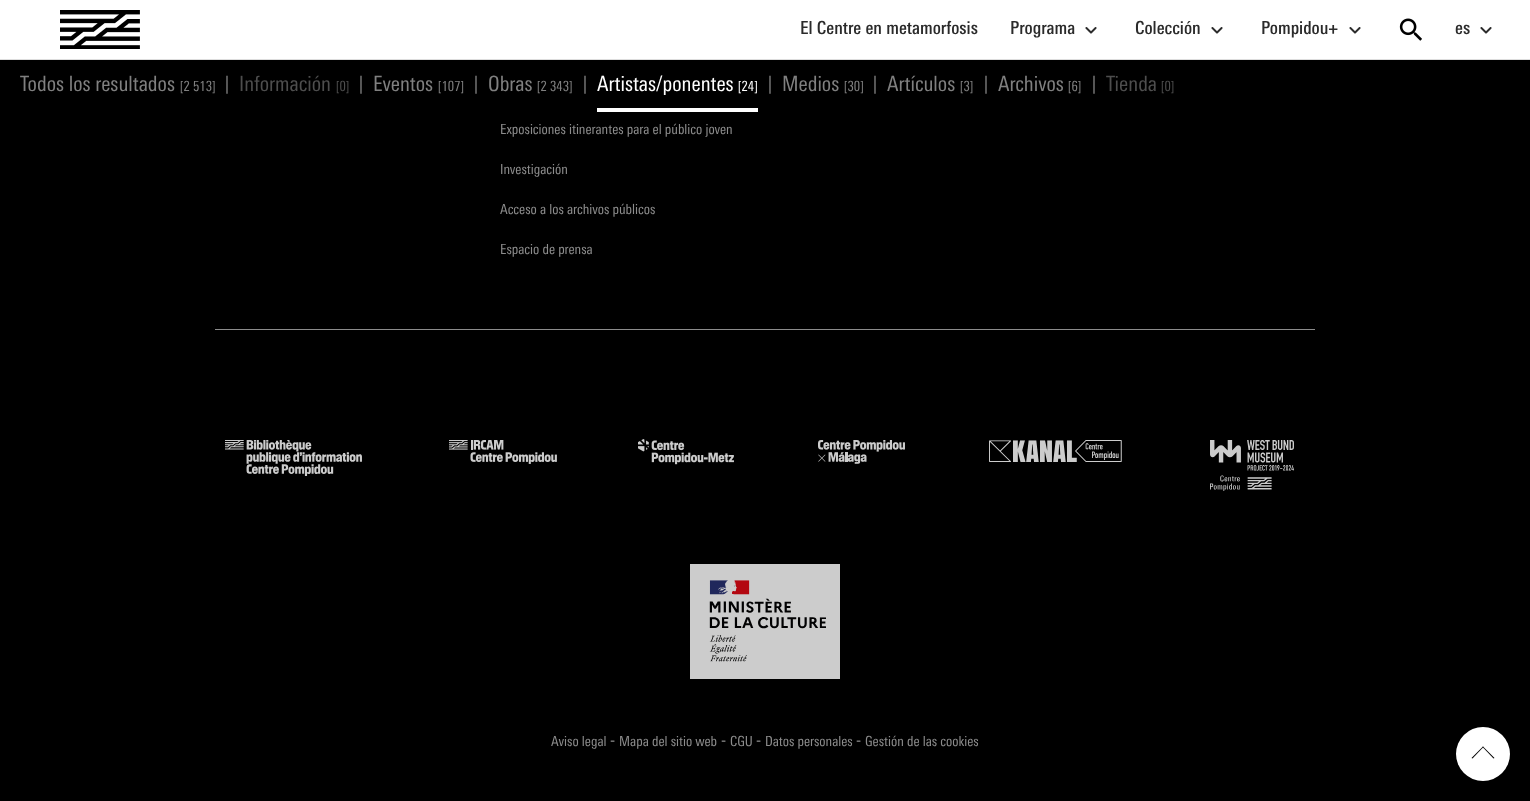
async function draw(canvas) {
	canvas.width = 1530;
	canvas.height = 801;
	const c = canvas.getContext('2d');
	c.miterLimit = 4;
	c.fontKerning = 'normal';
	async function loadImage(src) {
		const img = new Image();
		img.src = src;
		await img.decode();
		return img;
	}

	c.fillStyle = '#000';
	c.fillRect(0, 0, 1530, 801);
	c.fillStyle = '#fff';
	c.fillRect(0, 0, 1530, 59);
	c.fillStyle = '#ddd';
	c.fillRect(0, 59, 1530, 1);
	c.drawImage(await loadImage('img1.png'), 60, 10, 80, 39);
	c.font = '500 18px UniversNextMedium';
	c.fillStyle = '#2b2b2b';
	c.fillText('El Centre en metamorfosis', 800, 34);
	c.fillText('Programa', 1010, 34);
	c.drawImage(await loadImage('img2.png'), 1085, 27, 12, 7);
	c.fillText('Colección', 1135, 34);
	c.drawImage(await loadImage('img2.png'), 1211, 27, 12, 7);
	c.fillText('Pompidou+', 1261, 34);
	c.drawImage(await loadImage('img2.png'), 1349, 27, 12, 7);
	c.drawImage(await loadImage('img3.png'), 1399, 18, 23, 23);
	c.fillText('es', 1455, 34);
	c.drawImage(await loadImage('img2.png'), 1480, 27, 12, 7);
	c.font = '21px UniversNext';
	c.fillStyle = '#808080';
	c.fillText('Todos los resultados', 20, 91);
	c.font = '14px UniversNext';
	c.fillText('[2 513]', 180, 91);
	c.font = '18px UniversNext';
	c.fillText('|', 225, 90);
	c.font = '21px UniversNext';
	c.fillStyle = '#4e4e4e';
	c.fillText('Información', 239, 91);
	c.font = '14px UniversNext';
	c.fillText('[0]', 336, 91);
	c.font = '18px UniversNext';
	c.fillStyle = '#808080';
	c.fillText('|', 359, 90);
	c.font = '21px UniversNext';
	c.fillText('Eventos', 373, 91);
	c.font = '14px UniversNext';
	c.fillText('[107]', 438, 91);
	c.font = '18px UniversNext';
	c.fillText('|', 474, 90);
	c.font = '21px UniversNext';
	c.fillText('Obras', 488, 91);
	c.font = '14px UniversNext';
	c.fillText('[2 343]', 537, 91);
	c.font = '18px UniversNext';
	c.fillText('|', 583, 90);
	c.fillStyle = '#fff';
	c.fillRect(597, 108, 161, 4);
	c.font = '21px UniversNext';
	c.fillText('Artistas/ponentes', 597, 91);
	c.font = '14px UniversNext';
	c.fillText('[24]', 738, 91);
	c.font = '18px UniversNext';
	c.fillStyle = '#808080';
	c.fillText('|', 768, 90);
	c.font = '21px UniversNext';
	c.fillText('Medios', 782, 91);
	c.font = '14px UniversNext';
	c.fillText('[30]', 844, 91);
	c.font = '18px UniversNext';
	c.fillText('|', 873, 90);
	c.font = '21px UniversNext';
	c.fillText('Artículos', 887, 91);
	c.font = '14px UniversNext';
	c.fillText('[3]', 960, 91);
	c.font = '18px UniversNext';
	c.fillText('|', 984, 90);
	c.font = '21px UniversNext';
	c.fillText('Archivos', 998, 91);
	c.font = '14px UniversNext';
	c.fillText('[6]', 1068, 91);
	c.font = '18px UniversNext';
	c.fillText('|', 1092, 90);
	c.font = '21px UniversNext';
	c.fillStyle = '#4e4e4e';
	c.fillText('Tienda', 1106, 91);
	c.font = '14px UniversNext';
	c.fillText('[0]', 1161, 91);
	c.fillStyle = '#8c8c8c';
	for (const [text, x, y] of [
		['Exposiciones itinerantes para el público joven', 500, 134],
		['Investigación', 500, 174],
		['Acceso a los archivos públicos', 500, 214],
		['Espacio de prensa', 500, 254],
	]) {
		c.fillText(text, x, y);
	}
	c.fillRect(215, 329, 1100, 1);
	c.drawImage(await loadImage('img4.png'), 225, 440, 137, 36);
	c.drawImage(await loadImage('img5.png'), 449, 440, 108, 24);
	c.drawImage(await loadImage('img6.png'), 638, 439, 96, 26);
	c.drawImage(await loadImage('img7.png'), 818, 440, 87, 24);
	c.drawImage(await loadImage('img8.png'), 989, 440, 133, 22);
	c.drawImage(await loadImage('img9.png'), 1210, 440, 84, 51);
	c.drawImage(await loadImage('img10.png'), 690, 564, 150, 115);
	c.fillText('Aviso legal', 551, 746);
	c.font = '18px UniversNext';
	c.fillText('-', 610, 746);
	c.font = '14px UniversNext';
	c.fillText('Mapa del sitio web', 619, 746);
	c.font = '18px UniversNext';
	c.fillText('-', 721, 746);
	c.font = '14px UniversNext';
	c.fillText('CGU', 730, 746);
	c.font = '18px UniversNext';
	c.fillText('-', 756, 746);
	c.font = '14px UniversNext';
	c.fillText('Datos personales', 765, 746);
	c.font = '18px UniversNext';
	c.fillText('-', 856, 746);
	c.font = '14px UniversNext';
	c.fillText('Gestión de las cookies', 865, 746);
	c.fillStyle = '#fff';
	c.beginPath();
	c.arc(1483, 754, 27, 0, 2 * Math.PI);
	c.fill();
	c.fillStyle = '#000';
	c.beginPath();
	c.moveTo(1483, 746.5);
	c.lineTo(1494.5, 758);
	c.lineTo(1493.5, 758.5);
	c.lineTo(1482.5, 747);
	c.closePath();
	c.fill();
	c.beginPath();
	c.moveTo(1483, 746.5);
	c.lineTo(1483.5, 747);
	c.lineTo(1472.5, 758.5);
	c.lineTo(1471.5, 758);
	c.closePath();
	c.fill();
}

draw(document.querySelector('canvas'));
